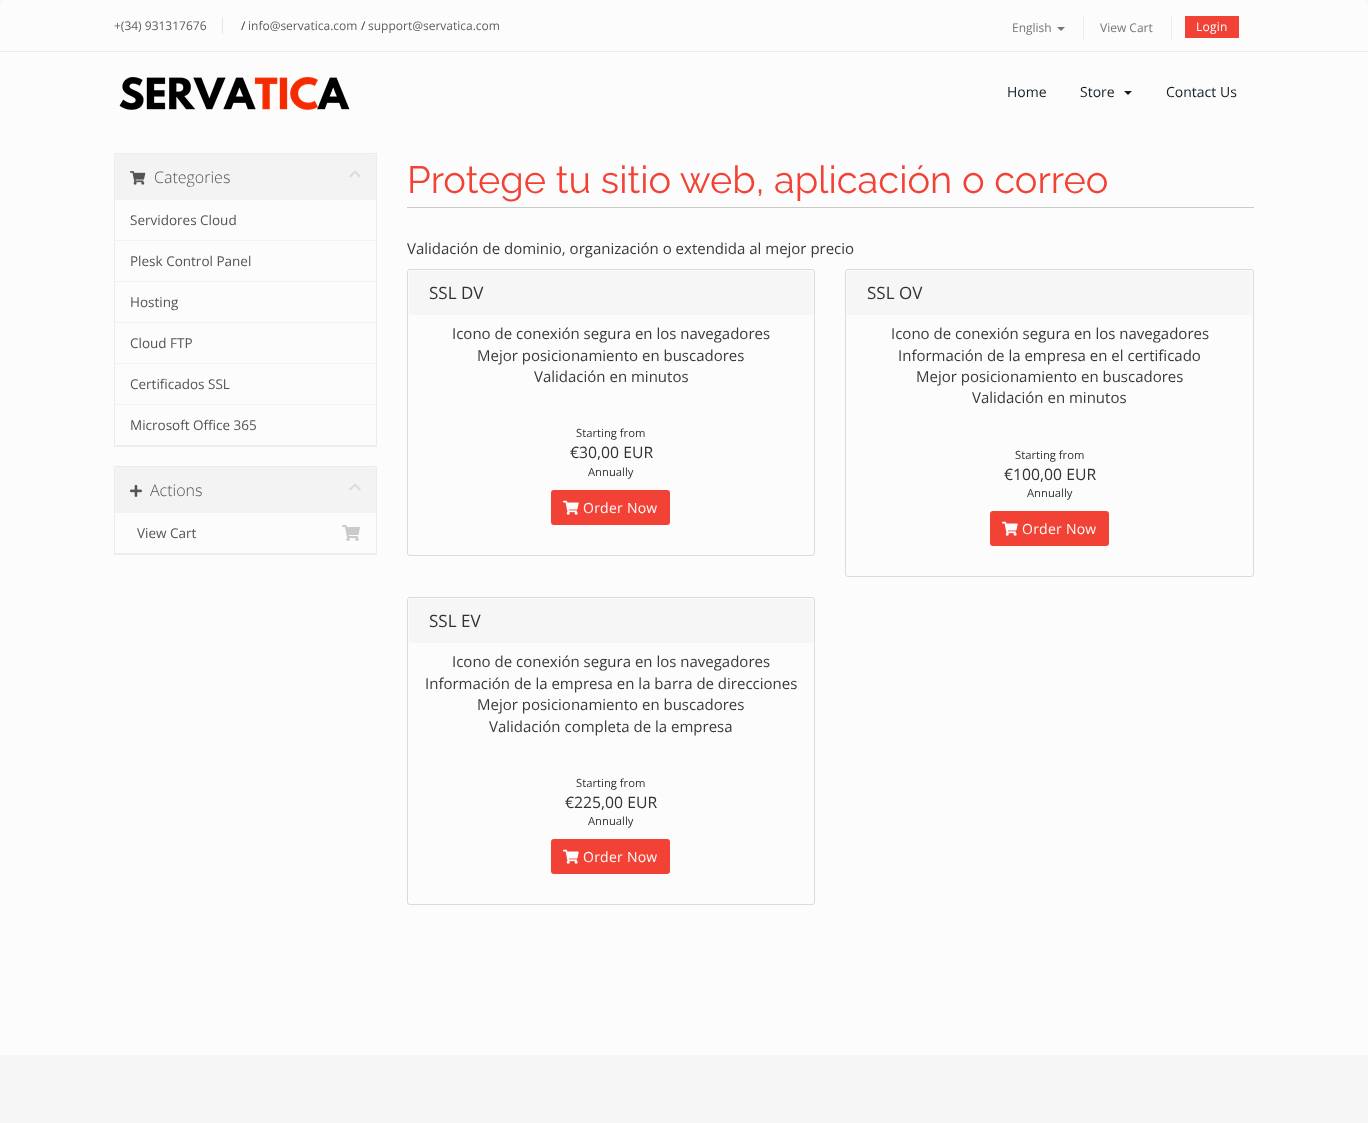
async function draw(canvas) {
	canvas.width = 1368;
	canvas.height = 1123;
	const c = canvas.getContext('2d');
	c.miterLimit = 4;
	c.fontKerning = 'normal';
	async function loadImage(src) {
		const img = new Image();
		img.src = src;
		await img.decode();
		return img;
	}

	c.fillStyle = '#f6f6f6';
	c.fillRect(0, 0, 1368, 1123);
	c.fillStyle = '#fcfcfc';
	c.beginPath();
	c.roundRect(0, 0, 1368, 52, [5, 5, 0, 0]);
	c.fill();
	c.fillStyle = '#eaedef';
	c.fillRect(0, 51, 1368, 1);
	c.font = '12px Open Sans';
	c.fillStyle = '#5a6063';
	c.fillText('+(34) 931317676', 114, 30);
	c.fillStyle = '#e6e6e6';
	c.fillRect(222, 17, 1, 17);
	c.fillStyle = '#323232';
	c.fillText('/', 241, 30);
	c.fillStyle = '#5a6063';
	c.fillText('info@servatica.com', 248, 30);
	c.fillStyle = '#323232';
	c.fillText('/', 361, 30);
	c.fillStyle = '#5a6063';
	c.fillText('support@servatica.com', 368, 30);
	c.fillStyle = '#ededed';
	c.fillRect(1083, 15, 1, 26);
	c.fillStyle = '#767676';
	c.fillText('English', 1012, 32);
	c.beginPath();
	c.moveTo(1057, 27);
	c.lineTo(1065, 27);
	c.lineTo(1061, 31);
	c.closePath();
	c.fill();
	c.fillStyle = '#ededed';
	c.fillRect(1171, 15, 1, 26);
	c.fillStyle = '#767676';
	c.fillText('View Cart', 1100, 32);
	c.fillStyle = '#f24235';
	c.fillRect(1185, 16, 54, 22);
	c.letterSpacing = '0.25px';
	c.fillStyle = '#fcfcfc';
	c.fillText('Login', 1196, 31);
	c.fillRect(0, 52, 1368, 1003);
	c.drawImage(await loadImage('img1.png'), 119, 76, 231, 34);
	c.letterSpacing = '0px';
	c.font = '14px Open Sans';
	c.fillStyle = '#121e25';
	c.fillText('Home', 1007, 97);
	c.fillText('Store', 1080, 97);
	c.beginPath();
	c.moveTo(1124, 91);
	c.lineTo(1132, 91);
	c.lineTo(1128, 95);
	c.closePath();
	c.fill();
	c.fillText('Contact Us', 1166, 97);
	c.save();
	c.beginPath();
	c.rect(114, 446, 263, 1);
	c.clip();
	c.fillStyle = '#0000000d';
	c.filter = 'blur(0.5px)';
	c.beginPath();
	c.rect(114, 154, 263, 293);
	c.fill();
	c.filter = 'none';
	c.restore();
	c.strokeStyle = '#ececec';
	c.strokeRect(114.5, 153.5, 262, 292);
	c.fillStyle = '#f3f3f3';
	c.beginPath();
	c.roundRect(115, 154, 261, 46, [3, 3, 0, 0]);
	c.fill();
	c.drawImage(await loadImage('img2.png'), 130, 171, 16, 14);
	c.font = '300 16px Open Sans';
	c.fillStyle = '#545454';
	c.fillText('Categories', 154, 183);
	c.drawImage(await loadImage('img3.png'), 349, 170, 12, 8);
	c.fillStyle = '#f3f3f3';
	c.fillRect(115, 240, 261, 1);
	c.font = '13.5px Open Sans';
	c.fillStyle = '#545454';
	c.fillText('Servidores Cloud', 130, 225);
	c.fillStyle = '#f3f3f3';
	c.fillRect(115, 281, 261, 1);
	c.fillStyle = '#545454';
	c.fillText('Plesk Control Panel', 130, 266);
	c.fillStyle = '#f3f3f3';
	c.fillRect(115, 322, 261, 1);
	c.fillStyle = '#545454';
	c.fillText('Hosting', 130, 307);
	c.fillStyle = '#f3f3f3';
	c.fillRect(115, 363, 261, 1);
	c.fillStyle = '#545454';
	c.fillText('Cloud FTP', 130, 348);
	c.fillStyle = '#f3f3f3';
	c.fillRect(115, 404, 261, 1);
	c.fillStyle = '#545454';
	c.fillText('Certificados SSL', 130, 389);
	c.fillText('Microsoft Office 365', 130, 430);
	c.save();
	c.beginPath();
	c.rect(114, 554, 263, 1);
	c.clip();
	c.fillStyle = '#0000000d';
	c.filter = 'blur(0.5px)';
	c.beginPath();
	c.rect(114, 467, 263, 88);
	c.fill();
	c.filter = 'none';
	c.restore();
	c.strokeRect(114.5, 466.5, 262, 87);
	c.fillStyle = '#f3f3f3';
	c.beginPath();
	c.roundRect(115, 467, 261, 46, [3, 3, 0, 0]);
	c.fill();
	c.drawImage(await loadImage('img4.png'), 130, 484, 12, 13);
	c.font = '300 16px Open Sans';
	c.fillStyle = '#545454';
	c.fillText('Actions', 150, 496);
	c.drawImage(await loadImage('img3.png'), 349, 483, 12, 8);
	c.font = '13.5px Open Sans';
	c.fillText('View Cart', 137, 538);
	c.drawImage(await loadImage('img5.png'), 342, 525, 18, 16);
	c.fillStyle = '#cacaca';
	c.fillRect(407, 207, 847, 1);
	c.font = '38px Raleway';
	c.fillStyle = '#f24235';
	c.fillText('Protege tu sitio web, aplicación o correo', 407, 193);
	c.font = '15px Open Sans';
	c.fillStyle = '#3a3939';
	c.fillText('Validación de dominio, organización o extendida al mejor precio', 407, 254);
	c.beginPath();
	c.roundRect(407.5, 269.5, 407, 286, 2.5);
	c.strokeStyle = '#dbdbdb';
	c.stroke();
	c.fillStyle = '#f6f6f6';
	c.beginPath();
	c.roundRect(409, 271, 404, 44, [3, 3, 0, 0]);
	c.fill();
	c.font = '17px Open Sans';
	c.fillStyle = '#323232';
	c.fillText('SSL DV', 429, 299);
	c.font = '15px Open Sans';
	c.fillStyle = '#3a3939';
	for (const [text, x, y] of [
		['Icono de conexión segura en los navegadores', 452, 339],
		['Mejor posicionamiento en buscadores', 477, 361],
		['Validación en minutos', 534, 382],
	]) {
		c.fillText(text, x, y);
	}
	c.font = '11.25px Open Sans';
	c.fillStyle = '#323232';
	c.fillText('Starting from', 576, 437);
	c.font = '15.75px Open Sans';
	c.fillText('€30,00 EUR', 570, 458);
	c.font = '11.25px Open Sans';
	c.fillText('Annually', 588, 476);
	c.fillStyle = '#f24235';
	c.beginPath();
	c.roundRect(552, 491, 117, 33, 2);
	c.fill();
	c.strokeStyle = '#f24235';
	c.lineWidth = 2;
	c.stroke();
	c.drawImage(await loadImage('img6.png'), 563, 500, 16, 15);
	c.letterSpacing = '0.25px';
	c.font = '14px Open Sans';
	c.fillStyle = '#fcfcfc';
	c.fillText('Order Now', 583, 513);
	c.beginPath();
	c.roundRect(845.5, 269.5, 408, 307, 2.5);
	c.strokeStyle = '#dbdbdb';
	c.lineWidth = 1;
	c.stroke();
	c.fillStyle = '#f6f6f6';
	c.beginPath();
	c.roundRect(847, 271, 405, 44, [3, 3, 0, 0]);
	c.fill();
	c.letterSpacing = '0px';
	c.font = '17px Open Sans';
	c.fillStyle = '#323232';
	c.fillText('SSL OV', 867, 299);
	c.font = '15px Open Sans';
	c.fillStyle = '#3a3939';
	for (const [text, x, y] of [
		['Icono de conexión segura en los navegadores', 891, 339],
		['Información de la empresa en el certificado', 898, 361],
		['Mejor posicionamiento en buscadores', 916, 382],
		['Validación en minutos', 972, 403],
	]) {
		c.fillText(text, x, y);
	}
	c.font = '11.25px Open Sans';
	c.fillStyle = '#323232';
	c.fillText('Starting from', 1015, 459);
	c.font = '15.75px Open Sans';
	c.fillText('€100,00 EUR', 1004, 480);
	c.font = '11.25px Open Sans';
	c.fillText('Annually', 1027, 497);
	c.fillStyle = '#f24235';
	c.beginPath();
	c.roundRect(991, 512, 117, 33, 2);
	c.fill();
	c.strokeStyle = '#f24235';
	c.lineWidth = 2;
	c.stroke();
	c.drawImage(await loadImage('img6.png'), 1002, 521, 16, 15);
	c.letterSpacing = '0.25px';
	c.font = '14px Open Sans';
	c.fillStyle = '#fcfcfc';
	c.fillText('Order Now', 1022, 534);
	c.beginPath();
	c.roundRect(407.5, 597.5, 407, 307, 2.5);
	c.strokeStyle = '#dbdbdb';
	c.lineWidth = 1;
	c.stroke();
	c.fillStyle = '#f6f6f6';
	c.beginPath();
	c.roundRect(409, 599, 404, 44, [3, 3, 0, 0]);
	c.fill();
	c.letterSpacing = '0px';
	c.font = '17px Open Sans';
	c.fillStyle = '#323232';
	c.fillText('SSL EV', 429, 627);
	c.font = '15px Open Sans';
	c.fillStyle = '#3a3939';
	for (const [text, x, y] of [
		['Icono de conexión segura en los navegadores', 452, 667],
		['Información de la empresa en la barra de direcciones', 425, 689],
		['Mejor posicionamiento en buscadores', 477, 710],
		['Validación completa de la empresa', 489, 732],
	]) {
		c.fillText(text, x, y);
	}
	c.font = '11.25px Open Sans';
	c.fillStyle = '#323232';
	c.fillText('Starting from', 576, 787);
	c.font = '15.75px Open Sans';
	c.fillText('€225,00 EUR', 565, 808);
	c.font = '11.25px Open Sans';
	c.fillText('Annually', 588, 825);
	c.fillStyle = '#f24235';
	c.beginPath();
	c.roundRect(552, 840, 117, 33, 2);
	c.fill();
	c.strokeStyle = '#f24235';
	c.lineWidth = 2;
	c.stroke();
	c.drawImage(await loadImage('img6.png'), 563, 849, 16, 15);
	c.letterSpacing = '0.25px';
	c.font = '14px Open Sans';
	c.fillStyle = '#fcfcfc';
	c.fillText('Order Now', 583, 862);
}

draw(document.querySelector('canvas'));
